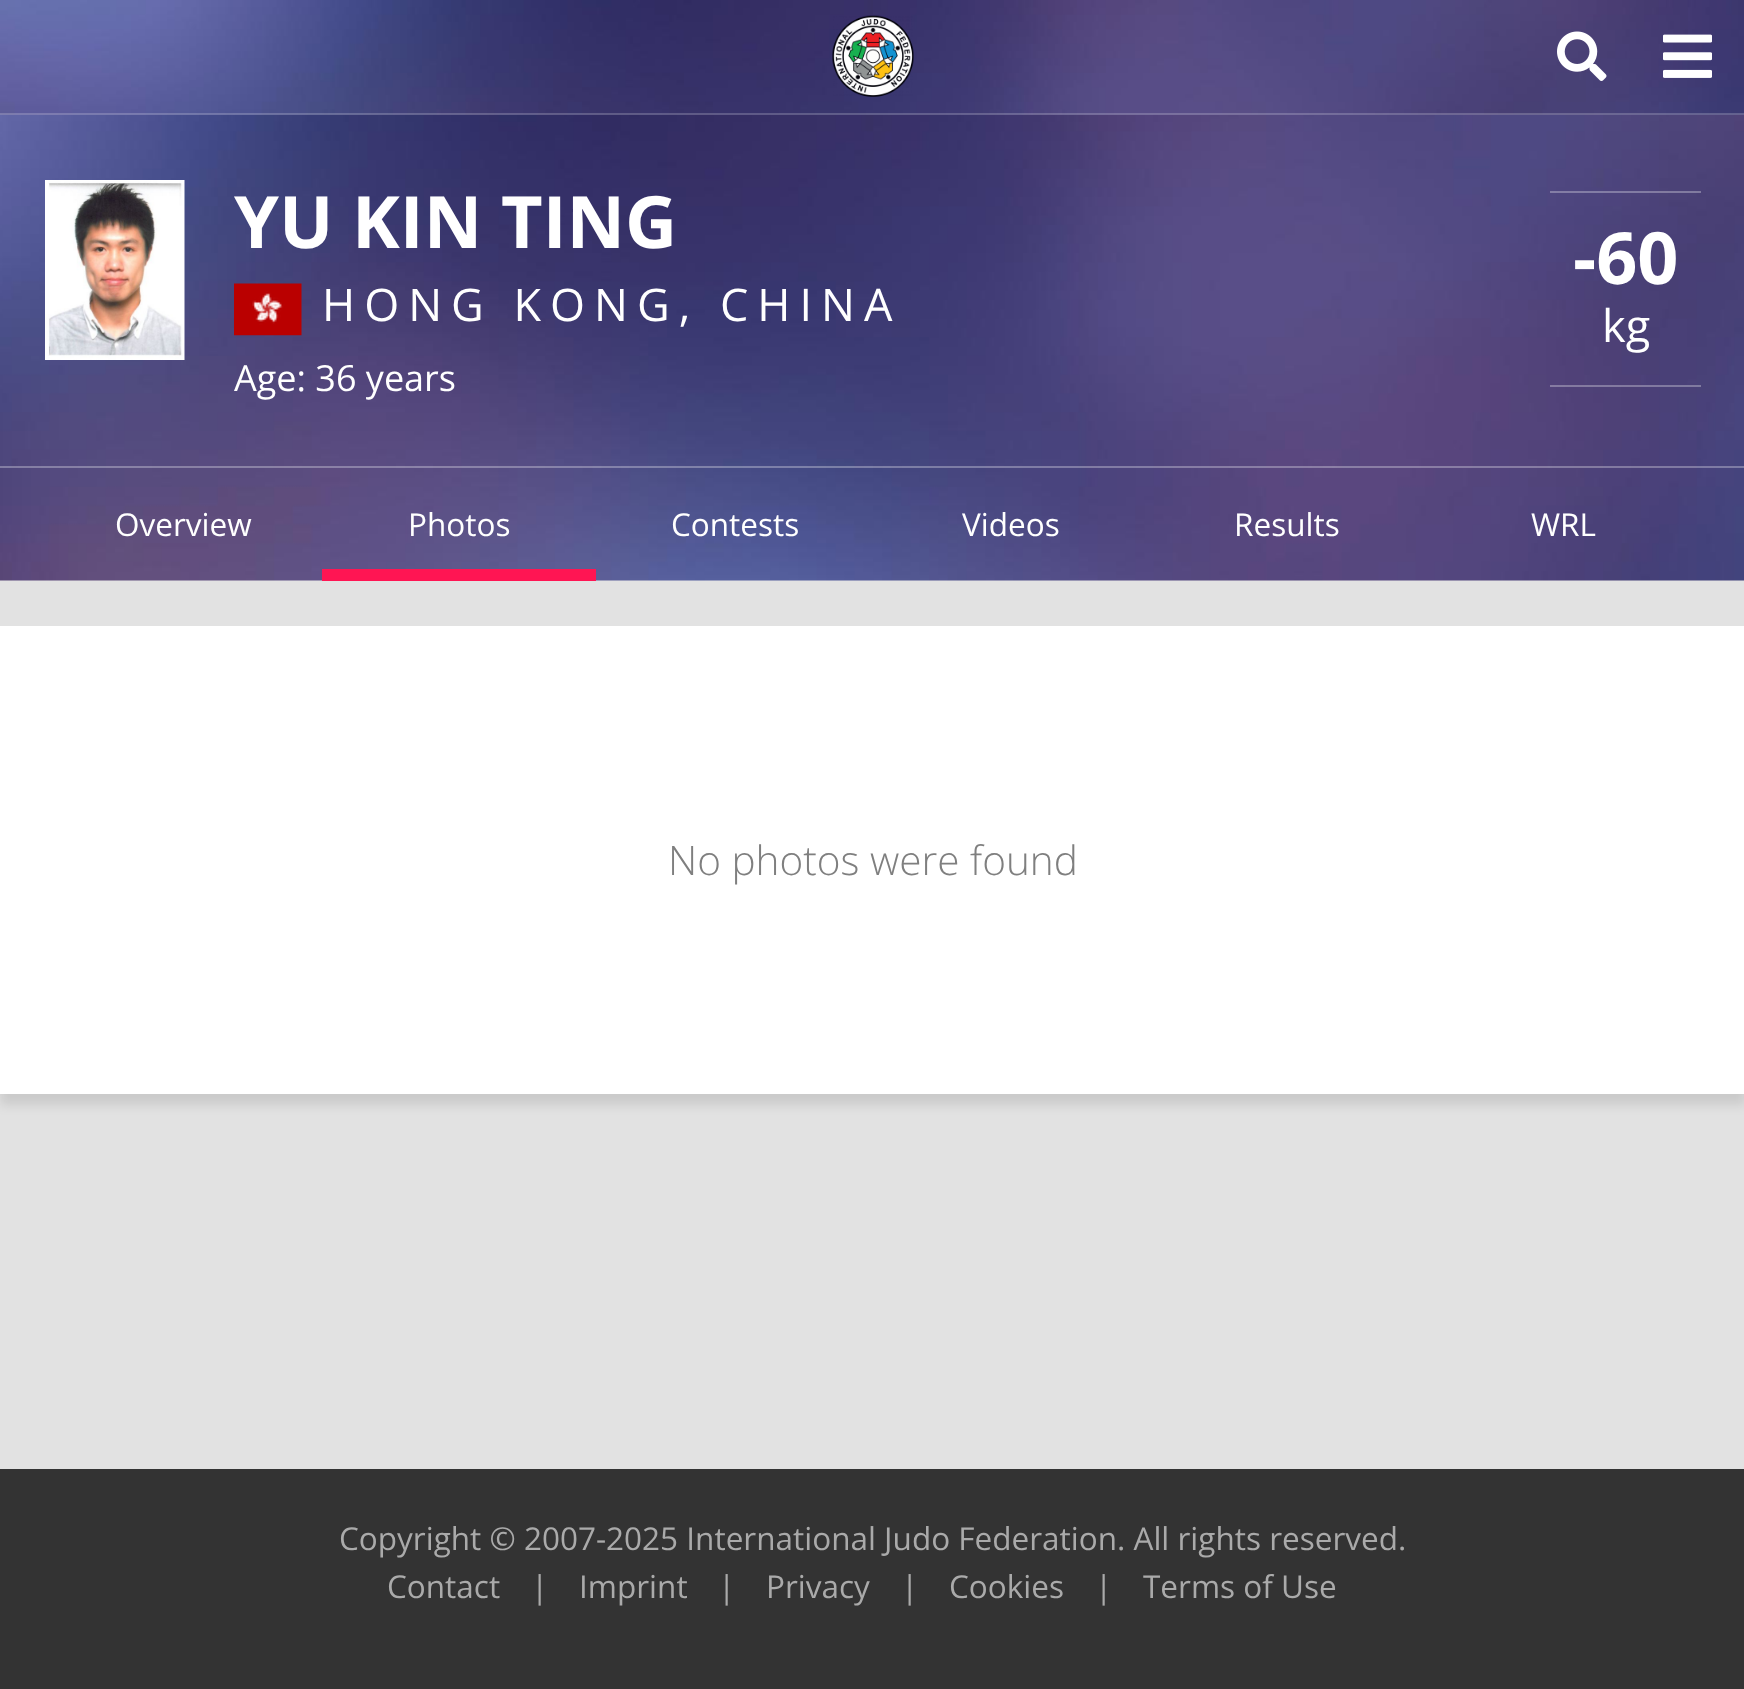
async function draw(canvas) {
	canvas.width = 1744;
	canvas.height = 1689;
	const c = canvas.getContext('2d');
	c.miterLimit = 4;
	c.fontKerning = 'normal';
	async function loadImage(src) {
		const img = new Image();
		img.src = src;
		await img.decode();
		return img;
	}

	c.fillStyle = '#e2e2e2';
	c.fillRect(0, 0, 1744, 1689);
	c.drawImage(await loadImage('img5.png'), 0, 114, 1744, 467);
	c.drawImage(await loadImage('img1.png'), 0, 0, 1744, 115);
	c.fillStyle = '#ffffff33';
	c.fillRect(0, 113, 1744, 2);
	c.drawImage(await loadImage('img2.png'), 832, 15, 82, 82);
	c.drawImage(await loadImage('img3.png'), 1557, 31, 50, 50);
	c.drawImage(await loadImage('img4.png'), 1663, 34, 49, 44);
	c.drawImage(await loadImage('img6.png'), 45, 180, 140, 180);
	c.font = 'bold 72px Open Sans';
	c.fillStyle = '#fff';
	c.fillText('YU KIN TING', 234, 248);
	c.drawImage(await loadImage('img7.png'), 234, 283, 68, 53);
	c.letterSpacing = '9px';
	c.font = '45px Open Sans';
	c.fillText('HONG KONG, CHINA', 322, 321);
	c.letterSpacing = '0px';
	c.font = '36px Open Sans';
	c.fillText('Age: 36 years', 234, 391);
	c.fillStyle = '#ffffff4d';
	c.fillRect(1550, 191, 151, 2);
	c.fillRect(1550, 385, 151, 2);
	c.font = 'bold 72px Open Sans';
	c.fillStyle = '#fff';
	c.fillText('-60', 1573, 284);
	c.font = '45px Open Sans';
	c.fillText('kg', 1602, 342);
	c.fillStyle = '#ffffff4d';
	c.fillRect(0, 466, 1744, 2);
	c.font = '31.5px Open Sans';
	c.fillStyle = '#fff';
	c.fillText('Overview', 115, 536);
	c.fillText('Photos', 408, 536);
	c.fillStyle = '#ff1553';
	c.fillRect(322, 569, 274, 12);
	c.fillStyle = '#fff';
	for (const [text, x, y] of [
		['Contests', 671, 536],
		['Videos', 962, 536],
		['Results', 1234, 536],
		['WRL', 1531, 536],
	]) {
		c.fillText(text, x, y);
	}
	c.fillStyle = '#0000001a';
	c.filter = 'blur(5.5px)';
	c.beginPath();
	c.rect(0, 637, 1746, 468);
	c.fill();
	c.filter = 'none';
	c.fillStyle = '#fff';
	c.fillRect(0, 626, 1744, 468);
	c.font = '300 40.5px Open Sans';
	c.fillStyle = '#7f7f7f';
	c.fillText('No photos were found', 668, 875);
	c.fillStyle = '#333';
	c.fillRect(0, 1469, 1744, 220);
	c.font = '31.5px Open Sans';
	c.fillStyle = '#aaa';
	for (const [text, x, y] of [
		['Copyright © 2007-2025 International Judo Federation. All rights reserved.', 339, 1550],
		['Contact', 387, 1598],
		['|', 531, 1598],
		['Imprint', 579, 1598],
		['|', 718, 1598],
		['Privacy', 766, 1598],
		['|', 901, 1598],
		['Cookies', 949, 1598],
		['|', 1095, 1598],
		['Terms of Use', 1143, 1598],
	]) {
		c.fillText(text, x, y);
	}
}

draw(document.querySelector('canvas'));
